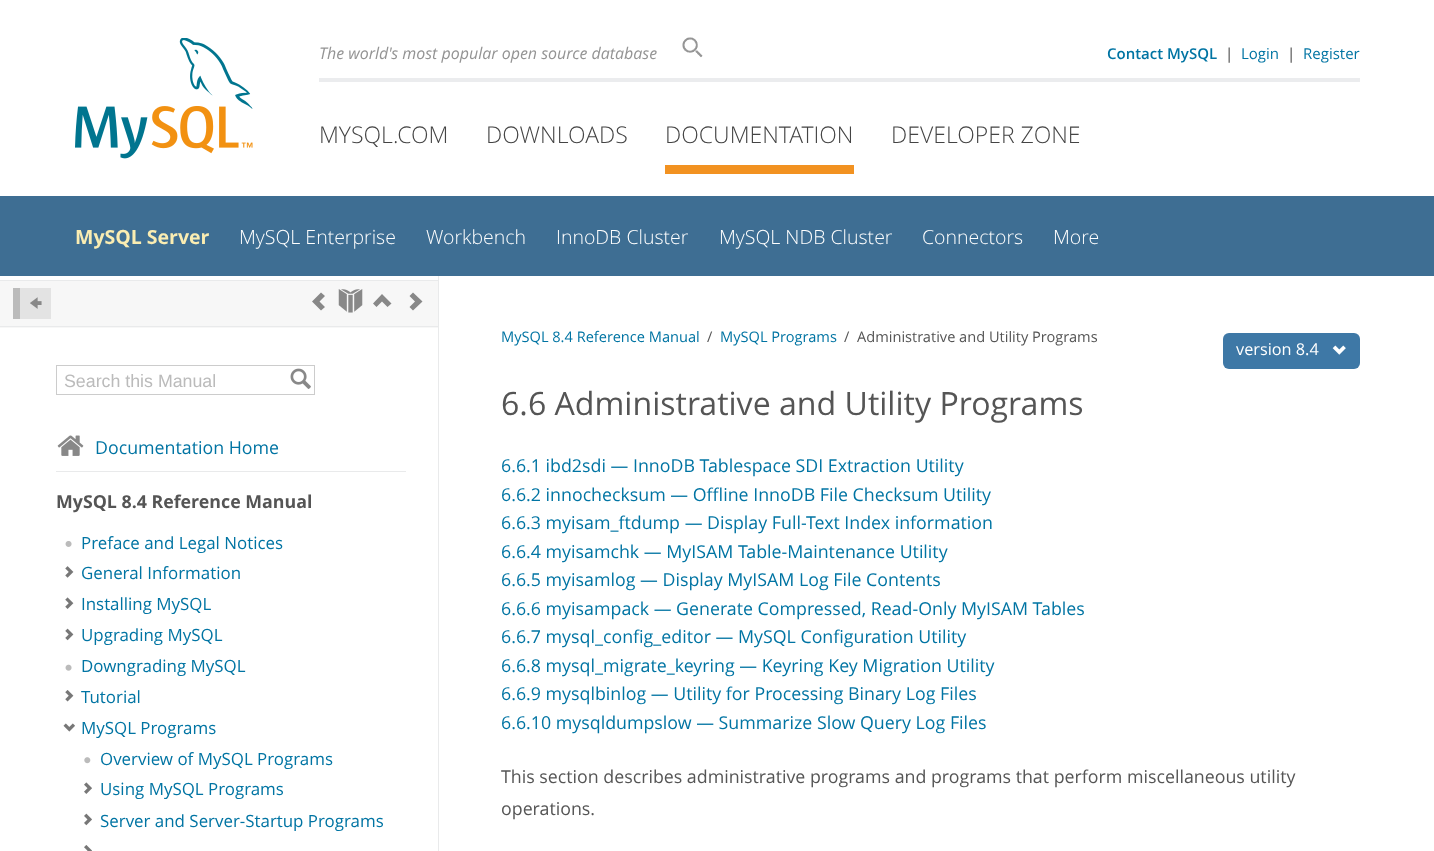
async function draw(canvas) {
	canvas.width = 1434;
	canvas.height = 851;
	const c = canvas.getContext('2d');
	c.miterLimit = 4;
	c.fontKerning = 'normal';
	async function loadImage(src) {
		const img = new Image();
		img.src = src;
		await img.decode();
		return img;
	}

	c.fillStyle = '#fff';
	c.fillRect(0, 0, 1434, 851);
	c.drawImage(await loadImage('img1.png'), 75, 38, 178, 121);
	c.fillStyle = '#ebecee';
	c.fillRect(319, 78, 1041, 4);
	c.font = 'italic 16px Open Sans';
	c.fillStyle = '#949494';
	c.fillText('The world\'s most popular open source database', 319, 59);
	c.drawImage(await loadImage('img2.png'), 682, 37, 21, 21);
	c.font = '600 15px Open Sans';
	c.fillStyle = '#0074a3';
	c.fillText('Contact MySQL', 1107, 59);
	c.font = '15px Open Sans';
	c.fillStyle = '#444';
	c.fillText('|', 1225, 59);
	c.fillStyle = '#0074a3';
	c.fillText('Login', 1241, 59);
	c.fillStyle = '#444';
	c.fillText('|', 1287, 59);
	c.fillStyle = '#0074a3';
	c.fillText('Register', 1303, 59);
	c.font = '300 23px Open Sans';
	c.fillStyle = '#444';
	c.fillText('MYSQL.COM', 319, 143);
	c.fillText('DOWNLOADS', 486, 143);
	c.fillStyle = '#f29221';
	c.fillRect(665, 165, 189, 9);
	c.fillStyle = '#444';
	c.fillText('DOCUMENTATION', 665, 143);
	c.fillText('DEVELOPER ZONE', 891, 143);
	c.fillStyle = '#3e6e93';
	c.fillRect(0, 196, 1434, 80);
	c.font = 'bold 19.5px Open Sans';
	c.fillStyle = '#faedb2';
	c.fillText('MySQL Server', 75, 244);
	c.font = '300 19.5px Open Sans';
	c.fillStyle = '#fff';
	for (const [text, x, y] of [
		['MySQL Enterprise', 239, 244],
		['Workbench', 426, 244],
		['InnoDB Cluster', 556, 244],
		['MySQL NDB Cluster', 719, 244],
		['Connectors', 922, 244],
		['More', 1053, 244],
	]) {
		c.fillText(text, x, y);
	}
	for (const [x, y, w, h, color] of [
		[438, 276, 1, 575, '#e9eaeb'],
		[0, 281, 438, 47, '#f7f7f7'],
		[0, 280, 438, 1, '#e9eaeb'],
		[0, 326, 438, 1, '#e9eaeb'],
		[20, 288, 31, 31, '#e3e3e3'],
		[13, 288, 7, 31, '#bbb'],
	]) {
		c.fillStyle = color;
		c.fillRect(x, y, w, h);
	}
	c.drawImage(await loadImage('img3.png'), 30, 297, 12, 12);
	c.fillStyle = '#888';
	c.beginPath();
	c.moveTo(325, 296);
	c.lineTo(321, 292.5);
	c.lineTo(312, 301.5);
	c.lineTo(321, 310.5);
	c.lineTo(325, 307);
	c.lineTo(319.5, 301.5);
	c.closePath();
	c.fill();
	c.drawImage(await loadImage('img4.png'), 338, 289, 25, 24);
	c.beginPath();
	c.moveTo(382, 294);
	c.lineTo(373, 303.5);
	c.lineTo(376.5, 307);
	c.lineTo(382, 301.5);
	c.lineTo(387.5, 307);
	c.lineTo(391.5, 303.5);
	c.closePath();
	c.moveTo(413, 292.5);
	c.lineTo(409.5, 296);
	c.lineTo(415, 301.5);
	c.lineTo(409.5, 307);
	c.lineTo(413, 310.5);
	c.lineTo(422.5, 301.5);
	c.closePath();
	c.fill();
	c.strokeStyle = '#ccc';
	c.strokeRect(56.5, 365.5, 258, 29);
	c.font = '17.8px Liberation Sans';
	c.fillStyle = '#bbb';
	c.fillText('Search this Manual', 64, 387);
	c.drawImage(await loadImage('img5.png'), 290, 368, 21, 21);
	c.drawImage(await loadImage('img6.png'), 57, 435, 27, 21);
	c.font = '17.8px Open Sans';
	c.fillStyle = '#0074a3';
	c.fillText('Documentation Home', 95, 454);
	c.fillStyle = '#e9eaeb';
	c.fillRect(56, 471, 350, 1);
	c.font = 'bold 17.8px Open Sans';
	c.fillStyle = '#555';
	c.fillText('MySQL 8.4 Reference Manual', 56, 508);
	c.drawImage(await loadImage('img7.png'), 65, 541, 7, 6);
	c.font = '16.9px Open Sans';
	c.fillStyle = '#0074a3';
	c.fillText('Preface and Legal Notices', 81, 549);
	c.drawImage(await loadImage('img8.png'), 65, 566, 9, 12);
	c.fillText('General Information', 81, 579);
	c.drawImage(await loadImage('img9.png'), 65, 597, 9, 12);
	c.fillText('Installing MySQL', 81, 610);
	c.drawImage(await loadImage('img10.png'), 65, 628, 9, 13);
	c.fillText('Upgrading MySQL', 81, 641);
	c.drawImage(await loadImage('img11.png'), 65, 664, 7, 7);
	c.fillText('Downgrading MySQL', 81, 672);
	c.drawImage(await loadImage('img12.png'), 65, 690, 9, 12);
	c.fillText('Tutorial', 81, 703);
	c.drawImage(await loadImage('img13.png'), 63, 723, 12, 9);
	c.fillText('MySQL Programs', 81, 734);
	c.drawImage(await loadImage('img14.png'), 84, 757, 7, 7);
	c.fillText('Overview of MySQL Programs', 100, 765);
	c.drawImage(await loadImage('img15.png'), 84, 782, 8, 12);
	c.fillText('Using MySQL Programs', 100, 795);
	c.drawImage(await loadImage('img16.png'), 84, 813, 8, 13);
	c.fillText('Server and Server-Startup Programs', 100, 827);
	c.drawImage(await loadImage('img17.png'), 84, 845, 8, 6);
	c.font = '14.6px Open Sans';
	c.fillText('MySQL 8.4 Reference Manual', 501, 342);
	c.fillStyle = '#555';
	c.fillText('/', 707, 342);
	c.fillStyle = '#0074a3';
	c.fillText('MySQL Programs', 720, 342);
	c.fillStyle = '#555';
	c.fillText('/', 844, 342);
	c.fillText('Administrative and Utility Programs', 857, 342);
	c.fillStyle = '#3e78a6';
	c.beginPath();
	c.roundRect(1223, 333, 137, 36, 6);
	c.fill();
	c.font = '16.25px Open Sans';
	c.fillStyle = '#fff';
	c.fillText('version 8.4', 1236, 355);
	c.drawImage(await loadImage('img18.png'), 1332, 345, 14, 10);
	c.font = '32.1px Open Sans';
	c.fillStyle = '#555';
	c.fillText('6.6 Administrative and Utility Programs', 501, 415);
	c.font = '17.8px Open Sans';
	c.fillStyle = '#0074a3';
	for (const [text, x, y] of [
		['6.6.1 ibd2sdi — InnoDB Tablespace SDI Extraction Utility', 501, 472],
		['6.6.2 innochecksum — Offline InnoDB File Checksum Utility', 501, 501],
		['6.6.3 myisam_ftdump — Display Full-Text Index information', 501, 529],
		['6.6.4 myisamchk — MyISAM Table-Maintenance Utility', 501, 558],
		['6.6.5 myisamlog — Display MyISAM Log File Contents', 501, 586],
		['6.6.6 myisampack — Generate Compressed, Read-Only MyISAM Tables', 501, 615],
		['6.6.7 mysql_config_editor — MySQL Configuration Utility', 501, 643],
		['6.6.8 mysql_migrate_keyring — Keyring Key Migration Utility', 501, 672],
		['6.6.9 mysqlbinlog — Utility for Processing Binary Log Files', 501, 700],
		['6.6.10 mysqldumpslow — Summarize Slow Query Log Files', 501, 729],
	]) {
		c.fillText(text, x, y);
	}
	c.fillStyle = '#555';
	c.fillText('This section describes administrative programs and programs that perform miscellaneous utility', 501, 783);
	c.fillText('operations.', 501, 815);
}

draw(document.querySelector('canvas'));
